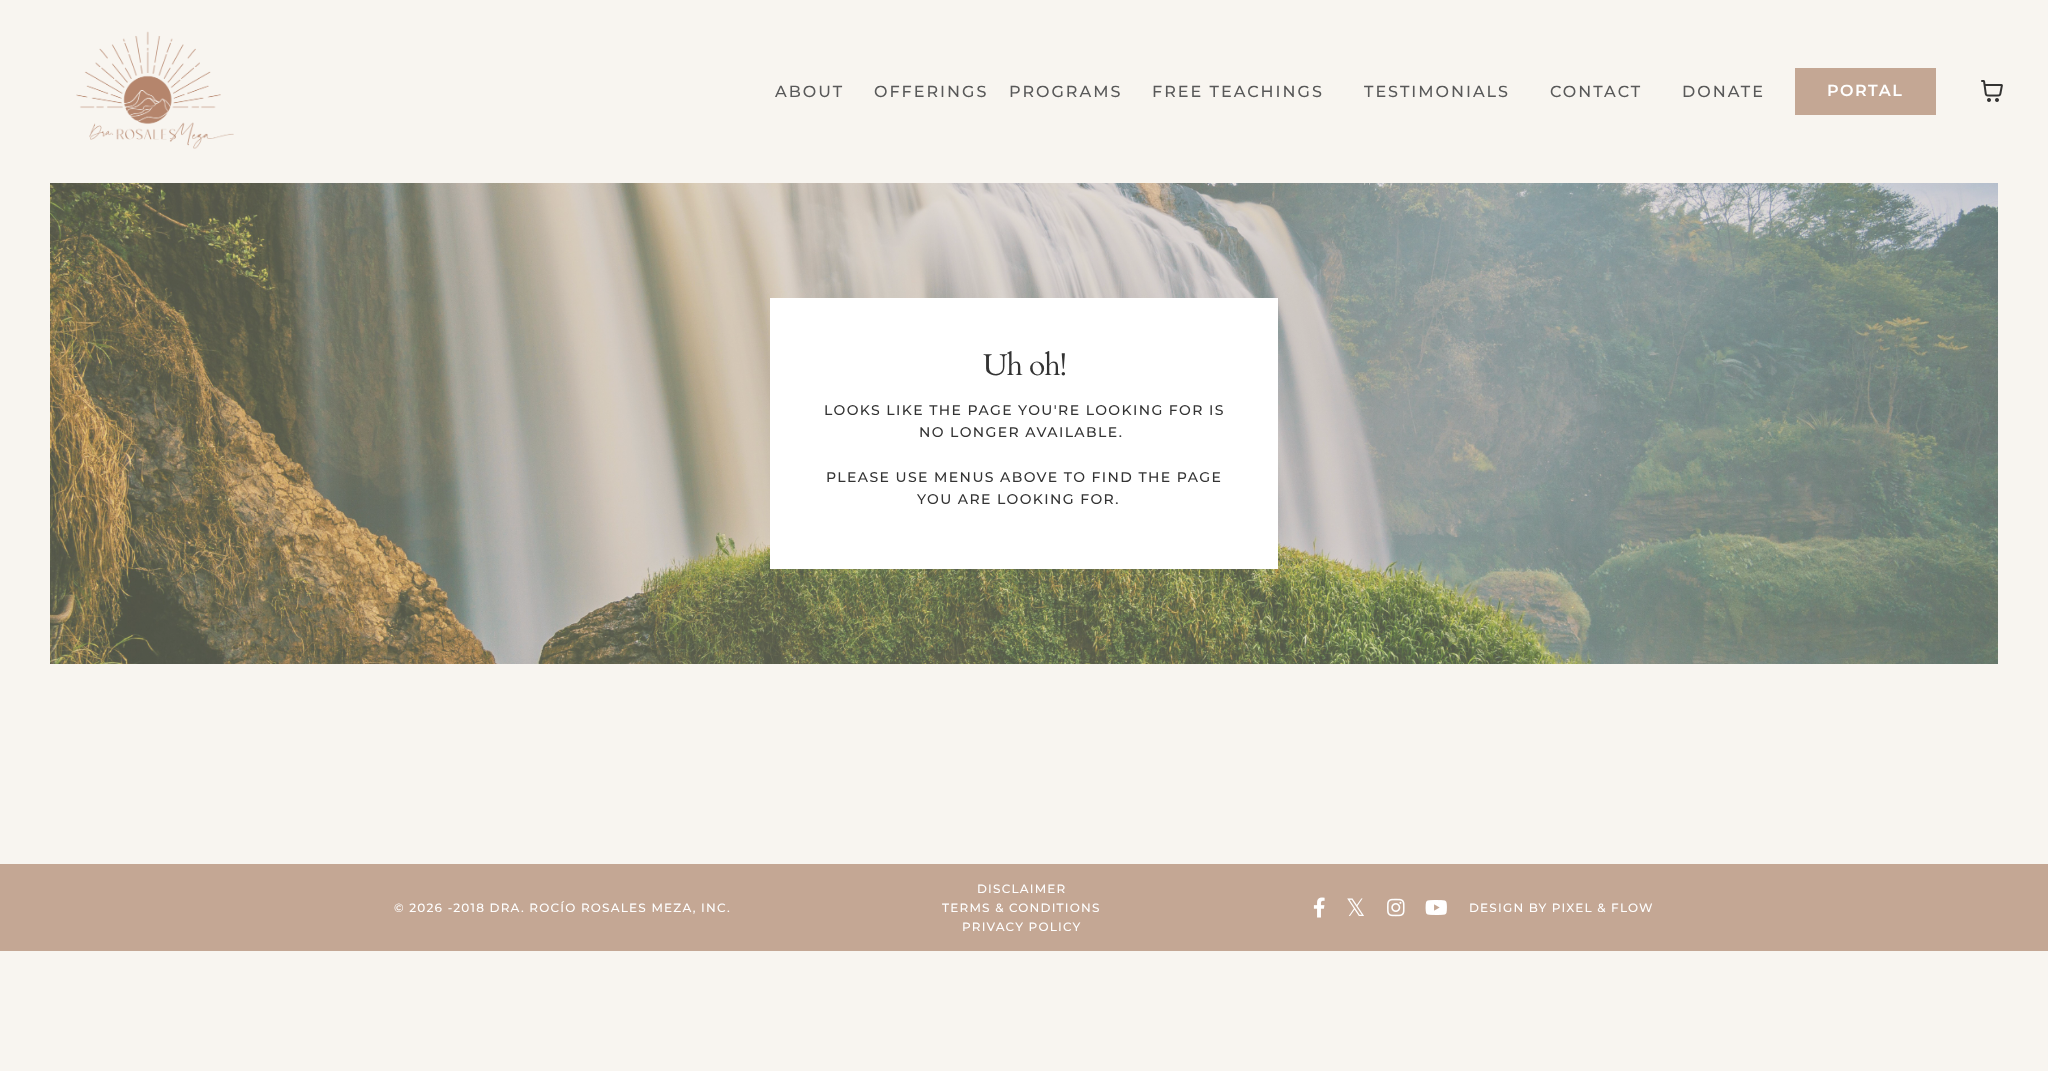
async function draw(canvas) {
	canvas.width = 2048;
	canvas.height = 1071;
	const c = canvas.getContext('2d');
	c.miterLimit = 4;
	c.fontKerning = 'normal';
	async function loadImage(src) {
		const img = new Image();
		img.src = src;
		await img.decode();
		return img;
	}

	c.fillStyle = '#f8f5f0';
	c.fillRect(0, 0, 2048, 1071);
	c.drawImage(await loadImage('img1.png'), 76, 31, 158, 118);
	c.letterSpacing = '2px';
	c.font = '500 16px Montserrat';
	c.fillStyle = '#595959';
	for (const [text, x, y] of [
		['ABOUT', 775, 97],
		['OFFERINGS', 874, 97],
		['PROGRAMS', 1009, 97],
		['FREE TEACHINGS', 1152, 97],
		['TESTIMONIALS', 1364, 97],
		['CONTACT', 1550, 97],
		['DONATE', 1682, 97],
	]) {
		c.fillText(text, x, y);
	}
	c.fillStyle = '#c4a794';
	c.fillRect(1795, 68, 141, 47);
	c.letterSpacing = '1.5px';
	c.font = '600 16px Montserrat';
	c.fillStyle = '#fff';
	c.fillText('PORTAL', 1827, 96);
	c.drawImage(await loadImage('img2.png'), 1981, 80, 22, 22);
	c.drawImage(await loadImage('img3.png'), 50, 183, 1948, 481);
	c.fillRect(770, 298, 508, 271);
	c.letterSpacing = '-1px';
	c.font = '30px Cardo';
	c.fillStyle = '#333';
	c.fillText('Uh oh!', 983, 375);
	c.letterSpacing = '1.4px';
	c.font = '500 14px Montserrat';
	for (const [text, x, y] of [
		['LOOKS LIKE THE PAGE YOU\'RE LOOKING FOR IS', 824, 415],
		['NO LONGER AVAILABLE.', 919, 437],
		['PLEASE USE MENUS ABOVE TO FIND THE PAGE', 826, 482],
		['YOU ARE LOOKING FOR.', 917, 504],
	]) {
		c.fillText(text, x, y);
	}
	c.fillStyle = '#c4a794';
	c.fillRect(0, 864, 2048, 87);
	c.letterSpacing = '1.2px';
	c.font = '500 12px Montserrat';
	c.fillStyle = '#fff';
	for (const [text, x, y] of [
		['© 2026 -2018 DRA. ROCÍO ROSALES MEZA, INC.', 394, 912],
		['DISCLAIMER', 977, 893],
		['TERMS & CONDITIONS', 942, 912],
		['PRIVACY POLICY', 962, 931],
	]) {
		c.fillText(text, x, y);
	}
	c.drawImage(await loadImage('img4.png'), 1313, 897, 12, 21);
	c.font = '24px DejaVu Sans';
	c.fillText('𝕏', 1346, 916);
	c.drawImage(await loadImage('img5.png'), 1387, 898, 18, 19);
	c.drawImage(await loadImage('img6.png'), 1425, 900, 22, 15);
	c.font = '500 12px Montserrat';
	c.fillText('DESIGN BY PIXEL & FLOW', 1469, 912);
}

draw(document.querySelector('canvas'));
